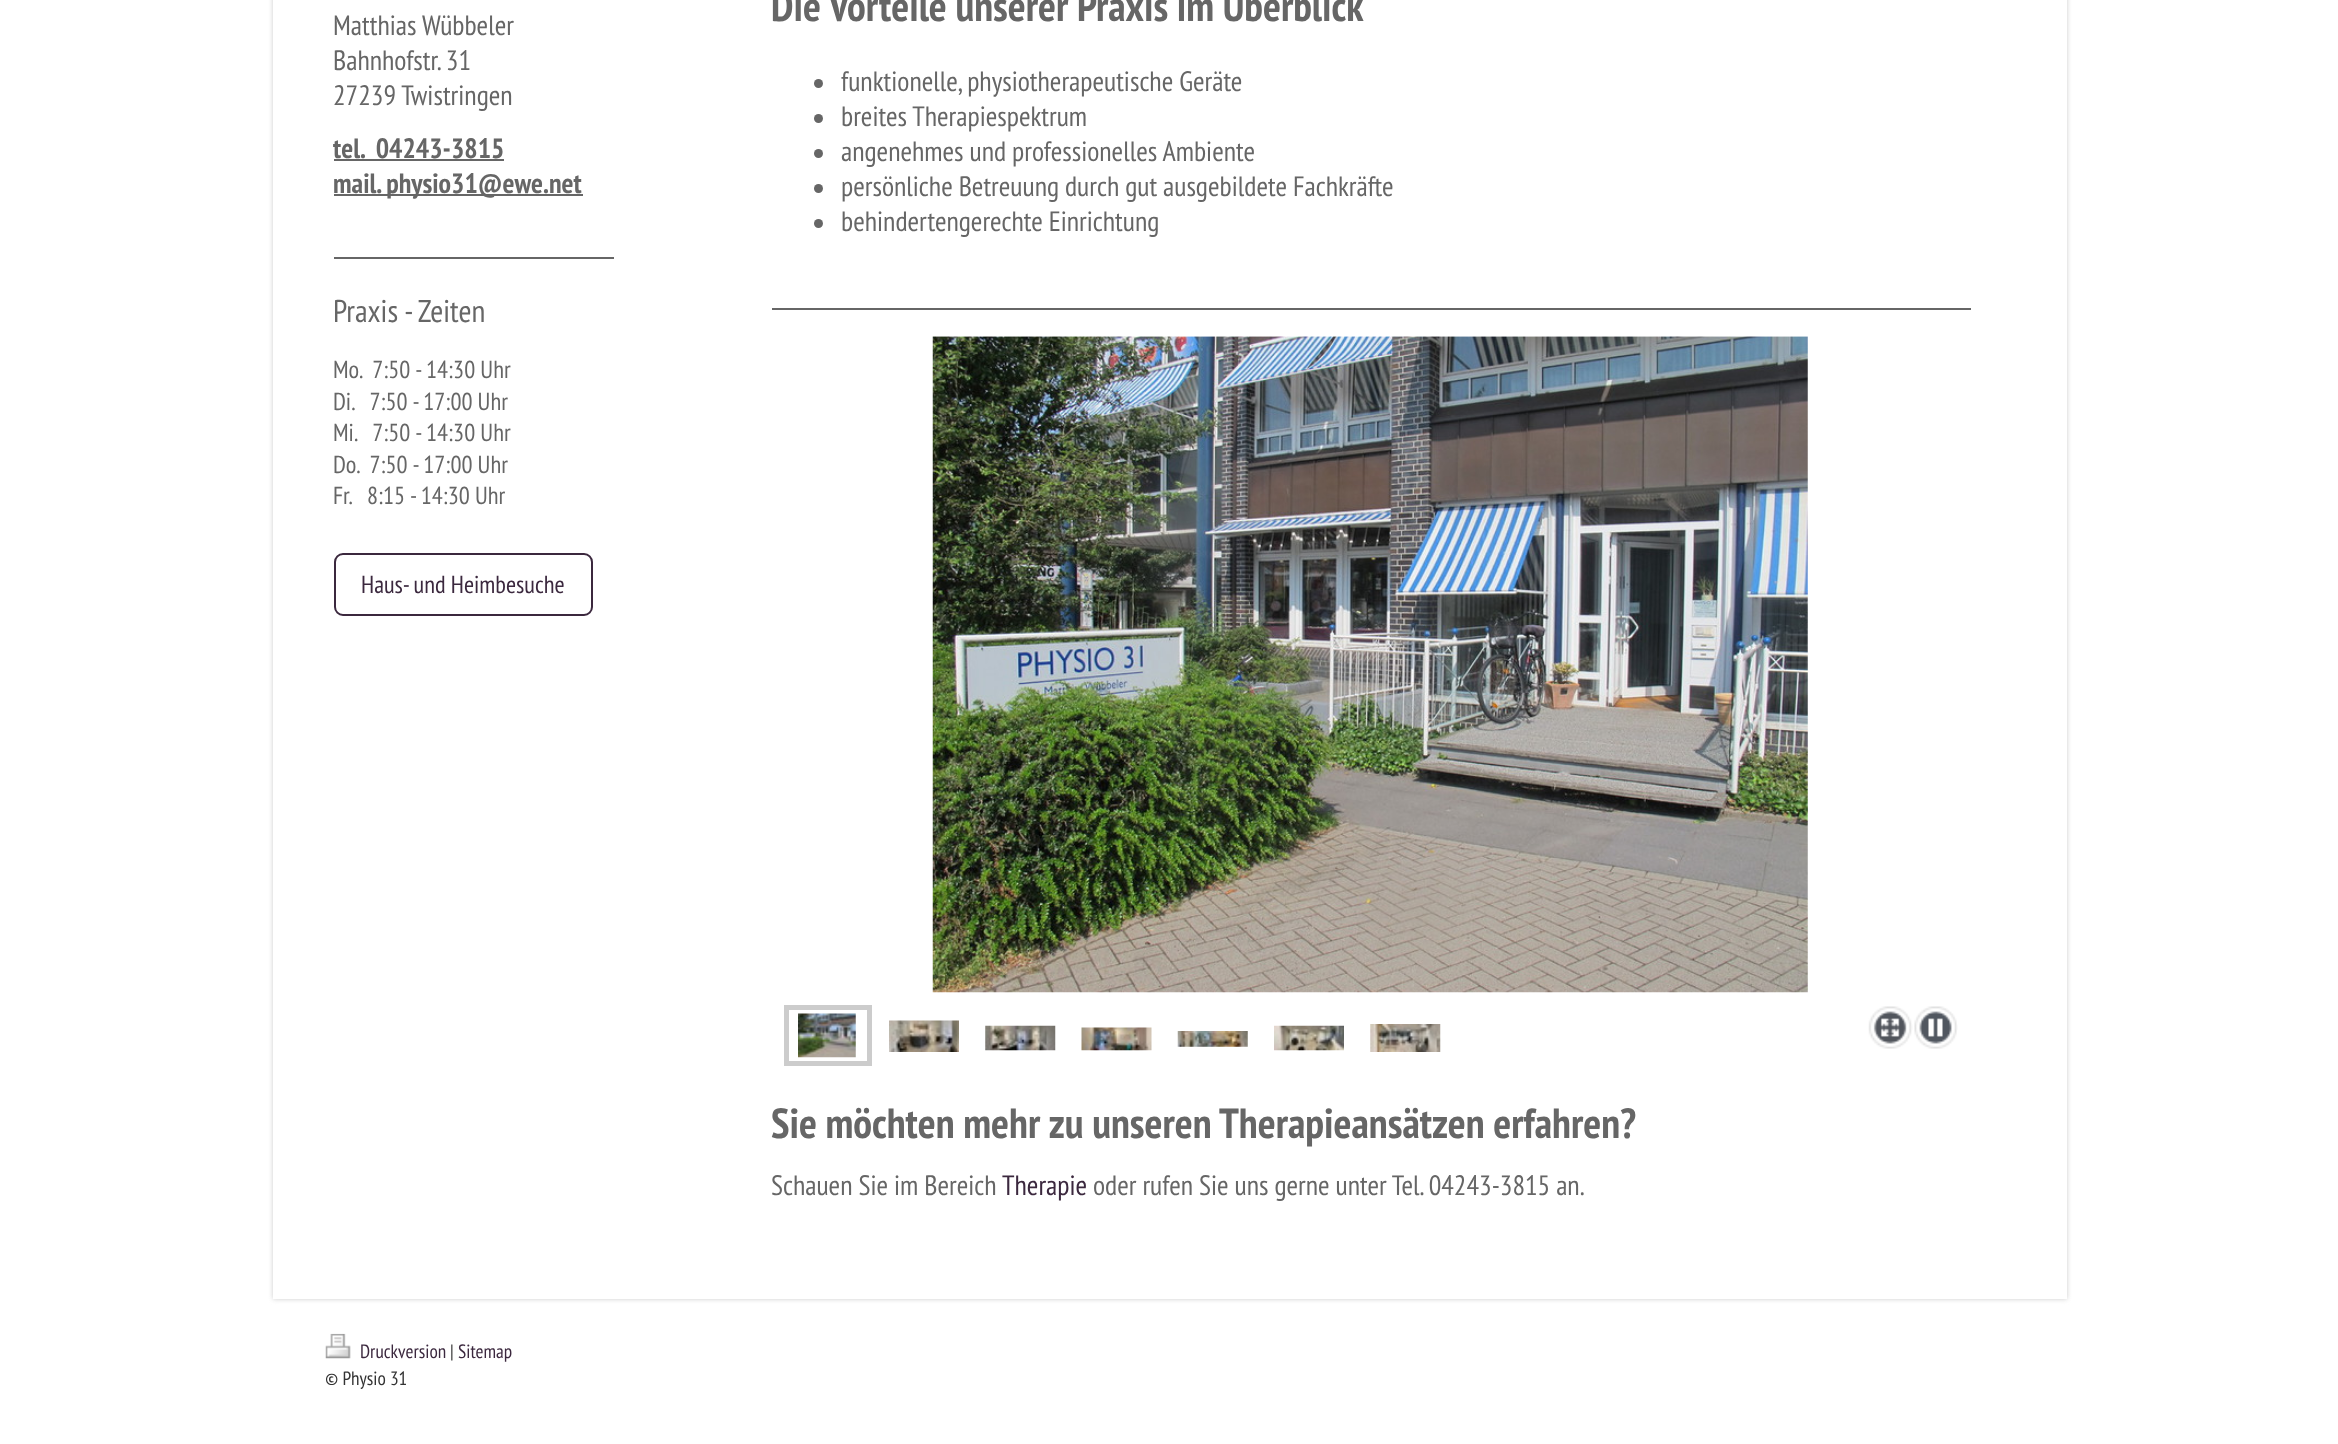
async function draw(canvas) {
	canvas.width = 2338;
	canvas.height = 1444;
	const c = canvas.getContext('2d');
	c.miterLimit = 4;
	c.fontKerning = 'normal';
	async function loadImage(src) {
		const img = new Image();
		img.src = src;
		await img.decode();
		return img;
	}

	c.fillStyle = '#fff';
	c.fillRect(0, 0, 2338, 1444);
	c.fillStyle = '#ccc';
	c.filter = 'blur(2.5px)';
	c.beginPath();
	c.rect(273, -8, 1794, 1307);
	c.fill();
	c.filter = 'none';
	c.fillStyle = '#fff';
	c.fillRect(273, 0, 1794, 1299);
	c.font = '28px PT Sans Narrow';
	c.fillStyle = '#666';
	for (const [text, x, y] of [
		['Matthias Wübbeler', 333, 35],
		['Bahnhofstr. 31', 333, 70],
		['27239 Twistringen', 333, 105],
	]) {
		c.fillText(text, x, y);
	}
	c.font = 'bold 28px PT Sans Narrow';
	c.fillText('tel.  04243-3815', 333, 158);
	c.fillRect(334, 159, 170, 2);
	c.fillRect(334, 194, 249, 2);
	c.fillText('mail. physio31@ewe.net', 333, 193);
	c.fillRect(334, 257, 280, 2);
	c.font = '31.5px PT Sans Narrow';
	c.fillText('Praxis - Zeiten', 333, 322);
	c.font = '24.5px PT Sans Narrow';
	for (const [text, x, y] of [
		['Mo.  7:50 - 14:30 Uhr', 333, 378],
		['Di.   7:50 - 17:00 Uhr', 333, 410],
		['Mi.   7:50 - 14:30 Uhr', 333, 441],
		['Do.  7:50 - 17:00 Uhr', 333, 473],
		['Fr.   8:15 - 14:30 Uhr', 333, 504],
	]) {
		c.fillText(text, x, y);
	}
	c.beginPath();
	c.roundRect(335, 554, 257, 61, 8);
	c.strokeStyle = '#3b283e';
	c.lineWidth = 2;
	c.stroke();
	c.fillStyle = '#3b283e';
	c.fillText('Haus- und Heimbesuche', 361, 593);
	c.font = 'bold 42px PT Sans Narrow';
	c.fillStyle = '#666';
	c.fillText('Die Vorteile unserer Praxis im Überblick', 771, 21);
	c.beginPath();
	c.arc(818.5, 83.5, 4.5, 0, 2 * Math.PI);
	c.fill();
	c.font = '28px PT Sans Narrow';
	c.fillText('funktionelle, physiotherapeutische Geräte', 841, 91);
	c.beginPath();
	c.arc(818.5, 118.5, 4.5, 0, 2 * Math.PI);
	c.fill();
	c.fillText('breites Therapiespektrum', 841, 126);
	c.beginPath();
	c.arc(818.5, 153.5, 4.5, 0, 2 * Math.PI);
	c.fill();
	c.fillText('angenehmes und professionelles Ambiente', 841, 161);
	c.beginPath();
	c.arc(818.5, 188.5, 4.5, 0, 2 * Math.PI);
	c.fill();
	c.fillText('persönliche Betreuung durch gut ausgebildete Fachkräfte', 841, 196);
	c.beginPath();
	c.arc(818.5, 223.5, 4.5, 0, 2 * Math.PI);
	c.fill();
	c.fillText('behindertengerechte Einrichtung', 841, 231);
	c.fillRect(772, 308, 1199, 2);
	c.drawImage(await loadImage('img1.png'), 932, 336, 876, 657);
	c.strokeStyle = '#ccc';
	c.lineWidth = 5;
	c.strokeRect(786.5, 1007.5, 83, 56);
	c.drawImage(await loadImage('img2.png'), 798, 1013, 58, 45);
	c.drawImage(await loadImage('img3.png'), 889, 1020, 70, 32);
	c.drawImage(await loadImage('img4.png'), 985, 1025, 71, 26);
	c.drawImage(await loadImage('img5.png'), 1081, 1027, 71, 24);
	c.drawImage(await loadImage('img6.png'), 1177, 1031, 71, 16);
	c.drawImage(await loadImage('img7.png'), 1274, 1025, 70, 26);
	c.drawImage(await loadImage('img8.png'), 1370, 1024, 71, 28);
	c.drawImage(await loadImage('img9.png'), 1868, 1006, 45, 43);
	c.drawImage(await loadImage('img10.png'), 1914, 1006, 44, 43);
	c.font = 'bold 42px PT Sans Narrow';
	c.fillText('Sie möchten mehr zu unseren Therapieansätzen erfahren?', 771, 1138);
	c.font = '28px PT Sans Narrow';
	c.fillText('Schauen Sie im Bereich', 771, 1195);
	c.fillStyle = '#3b283e';
	c.fillText('Therapie', 1002, 1195);
	c.fillStyle = '#666';
	c.fillText('oder rufen Sie uns gerne unter Tel. 04243-3815 an.', 1093, 1195);
	c.drawImage(await loadImage('img11.png'), 325, 1333, 26, 26);
	c.font = '19.25px PT Sans Narrow';
	c.fillStyle = '#3b283e';
	c.fillText('Druckversion', 360, 1358);
	c.fillStyle = '#333';
	c.fillText('|', 450, 1358);
	c.fillStyle = '#3b283e';
	c.fillText('Sitemap', 458, 1358);
	c.save();
	c.beginPath();
	c.rect(326, 1334, 1688, 59);
	c.clip();
	c.fillStyle = '#333';
	c.fillText('© Physio 31', 325, 1385);
	c.restore();
}

draw(document.querySelector('canvas'));
